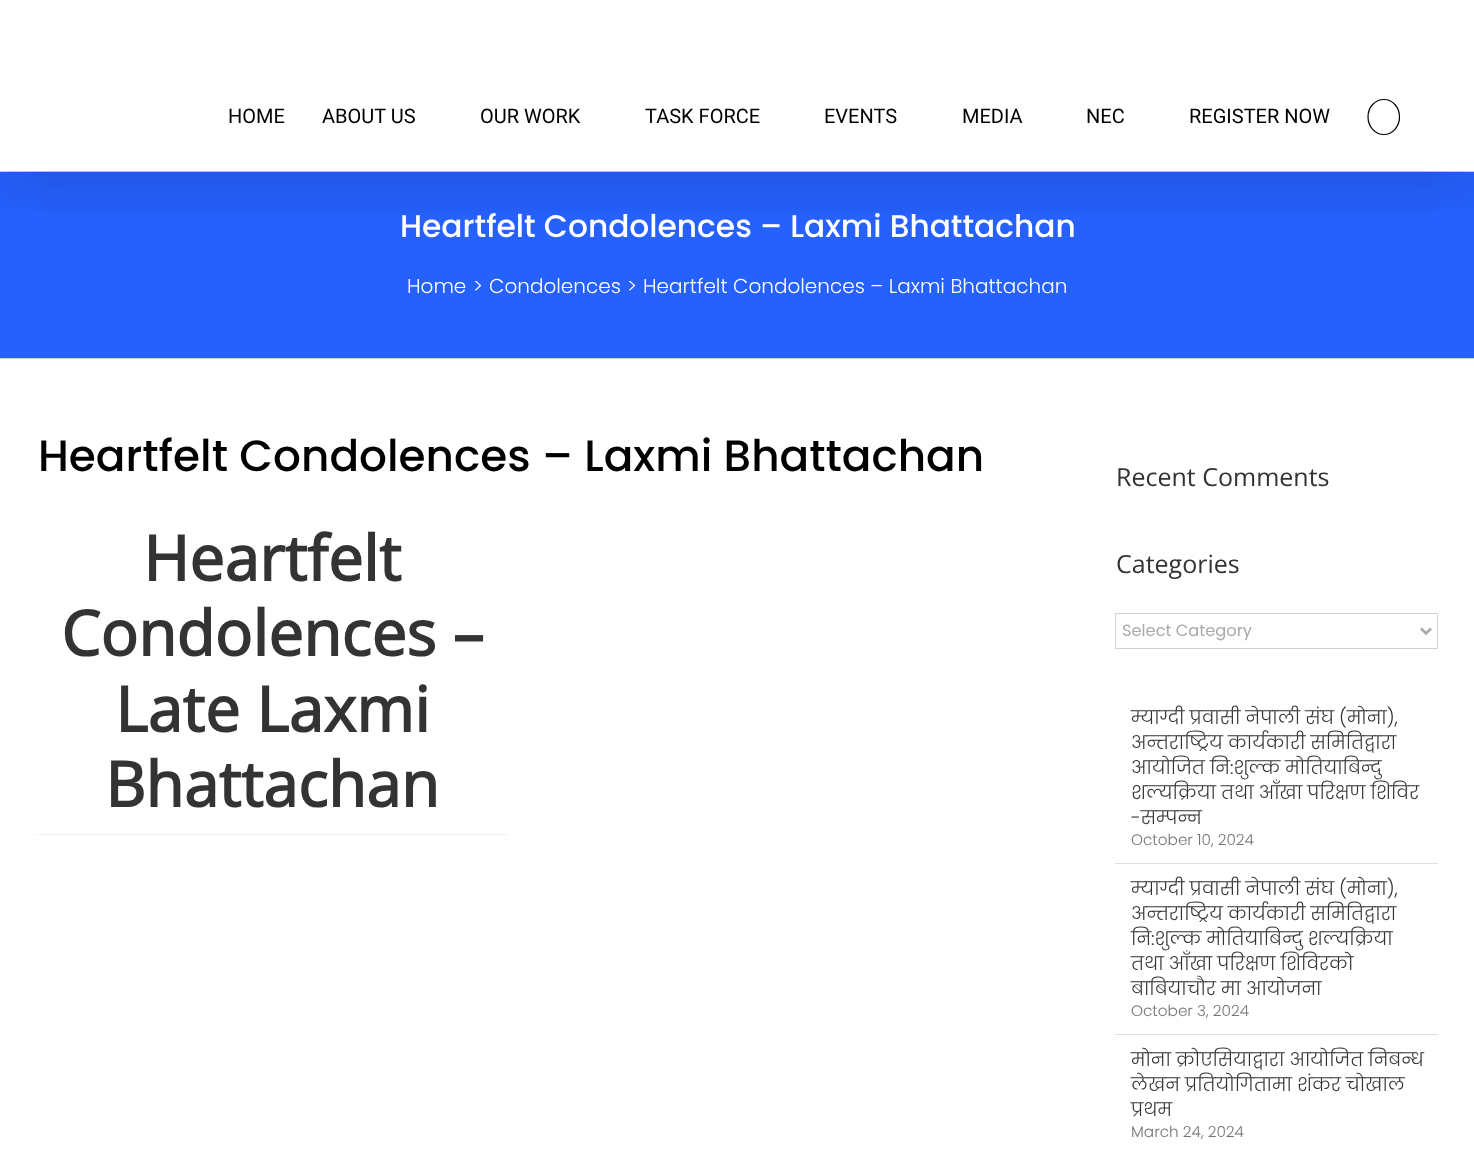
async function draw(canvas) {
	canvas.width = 1474;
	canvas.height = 1154;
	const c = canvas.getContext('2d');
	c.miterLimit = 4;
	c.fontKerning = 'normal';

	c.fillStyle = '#fff';
	c.fillRect(0, 0, 1474, 1154);
	c.fillStyle = '#2660fd';
	c.fillRect(0, 172, 1474, 186);
	c.fillStyle = '#d2d3d4';
	c.fillRect(0, 171, 1474, 1);
	c.save();
	c.beginPath();
	c.rect(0, 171, 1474, 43);
	c.clip();
	c.fillStyle = '#00000024';
	c.filter = 'blur(31px)';
	c.beginPath();
	c.rect(3, 15, 1470, 166);
	c.fill();
	c.filter = 'none';
	c.restore();
	c.font = '20px Roboto';
	c.fillStyle = '#000';
	for (const [text, x, y] of [
		['HOME', 228, 123],
		['ABOUT US', 322, 123],
		['OUR WORK', 480, 123],
		['TASK FORCE', 645, 123],
		['EVENTS', 824, 123],
		['MEDIA', 962, 123],
		['NEC', 1086, 123],
		['REGISTER NOW', 1189, 123],
	]) {
		c.fillText(text, x, y);
	}
	c.beginPath();
	c.moveTo(1384, 99.5);
	c.bezierCurveTo(1392.5, 99.5, 1399.5, 107, 1399.5, 117);
	c.bezierCurveTo(1399.5, 126.5, 1392.5, 134.5, 1384, 134.5);
	c.bezierCurveTo(1375, 134.5, 1368, 126.5, 1368, 117);
	c.bezierCurveTo(1368, 107, 1375, 99.5, 1384, 99.5);
	c.closePath();
	c.strokeStyle = '#000';
	c.lineWidth = 1.2;
	c.stroke();
	c.fillStyle = '#d2d3d4';
	c.fillRect(0, 358, 1474, 1);
	c.font = '500 31.25px Poppins';
	c.fillStyle = '#fff';
	c.fillText('Heartfelt Condolences – Laxmi Bhattachan', 400, 237);
	c.font = '300 20px Poppins';
	for (const [text, x, y] of [
		['Home', 407, 293],
		['>', 473, 293],
		['Condolences', 489, 293],
		['>', 627, 293],
		['Heartfelt Condolences – Laxmi Bhattachan', 643, 293],
	]) {
		c.fillText(text, x, y);
	}
	c.font = '500 43.75px Poppins';
	c.fillStyle = '#000';
	c.fillText('Heartfelt Condolences – Laxmi Bhattachan', 38, 471);
	c.beginPath();
	c.moveTo(37.5, 834.5);
	c.lineTo(507.5, 834.5);
	c.strokeStyle = '#e0dede';
	c.setLineDash([1.25, 1.25]);
	c.stroke();
	c.font = 'bold 62.5px Open Sans';
	c.fillStyle = '#333';
	for (const [text, x, y] of [
		['Heartfelt', 143, 581],
		['Condolences –', 61, 656],
		['Late Laxmi', 115, 732],
		['Bhattachan', 105, 807],
	]) {
		c.fillText(text, x, y);
	}
	c.font = '25px Open Sans';
	c.fillText('Recent Comments', 1116, 486);
	c.fillText('Categories', 1116, 573);
	c.strokeStyle = '#d2d2d2';
	c.lineWidth = 1;
	c.setLineDash([]);
	c.strokeRect(1115.5, 613.5, 322, 35);
	c.beginPath();
	c.moveTo(1421, 628.5);
	c.lineTo(1426, 633.5);
	c.lineTo(1431, 628.5);
	c.strokeStyle = '#aaa9a9';
	c.lineWidth = 2.5;
	c.stroke();
	c.font = '16.25px Poppins';
	c.fillStyle = '#aaa9a9';
	c.fillText('Select Category', 1122, 636);
	c.fillStyle = '#e0dede';
	c.fillRect(1115, 863, 323, 1);
	c.font = '300 18.75px Poppins';
	c.fillStyle = '#333';
	for (const [text, x, y] of [
		['म्याग्दी प्रवासी नेपाली संघ (मोना),', 1131, 724],
		['अन्तराष्ट्रिय कार्यकारी समितिद्वारा', 1131, 749],
		['आयोजित नि:शुल्क मोतियाबिन्दु', 1131, 774],
		['शल्यक्रिया तथा आँखा परिक्षण शिविर', 1131, 799],
		['-सम्पन्न', 1131, 824],
	]) {
		c.fillText(text, x, y);
	}
	c.font = '300 15.25px Poppins';
	c.fillStyle = '#747474';
	c.fillText('October 10, 2024', 1131, 845);
	c.fillStyle = '#e0dede';
	c.fillRect(1115, 1034, 323, 1);
	c.font = '300 18.75px Poppins';
	c.fillStyle = '#333';
	for (const [text, x, y] of [
		['म्याग्दी प्रवासी नेपाली संघ (मोना),', 1131, 895],
		['अन्तराष्ट्रिय कार्यकारी समितिद्वारा', 1131, 920],
		['नि:शुल्क मोतियाबिन्दु शल्यक्रिया', 1131, 945],
		['तथा आँखा परिक्षण शिविरको', 1131, 970],
		['बाबियाचौर मा आयोजना', 1131, 995],
	]) {
		c.fillText(text, x, y);
	}
	c.font = '300 15.25px Poppins';
	c.fillStyle = '#747474';
	c.fillText('October 3, 2024', 1131, 1016);
	c.font = '300 18.75px Poppins';
	c.fillStyle = '#333';
	for (const [text, x, y] of [
		['मोना क्रोएसियाद्वारा आयोजित निबन्ध', 1131, 1066],
		['लेखन प्रतियोगितामा शंकर चोखाल', 1131, 1091],
		['प्रथम', 1131, 1116],
	]) {
		c.fillText(text, x, y);
	}
	c.font = '300 15.25px Poppins';
	c.fillStyle = '#747474';
	c.fillText('March 24, 2024', 1131, 1137);
}

draw(document.querySelector('canvas'));
